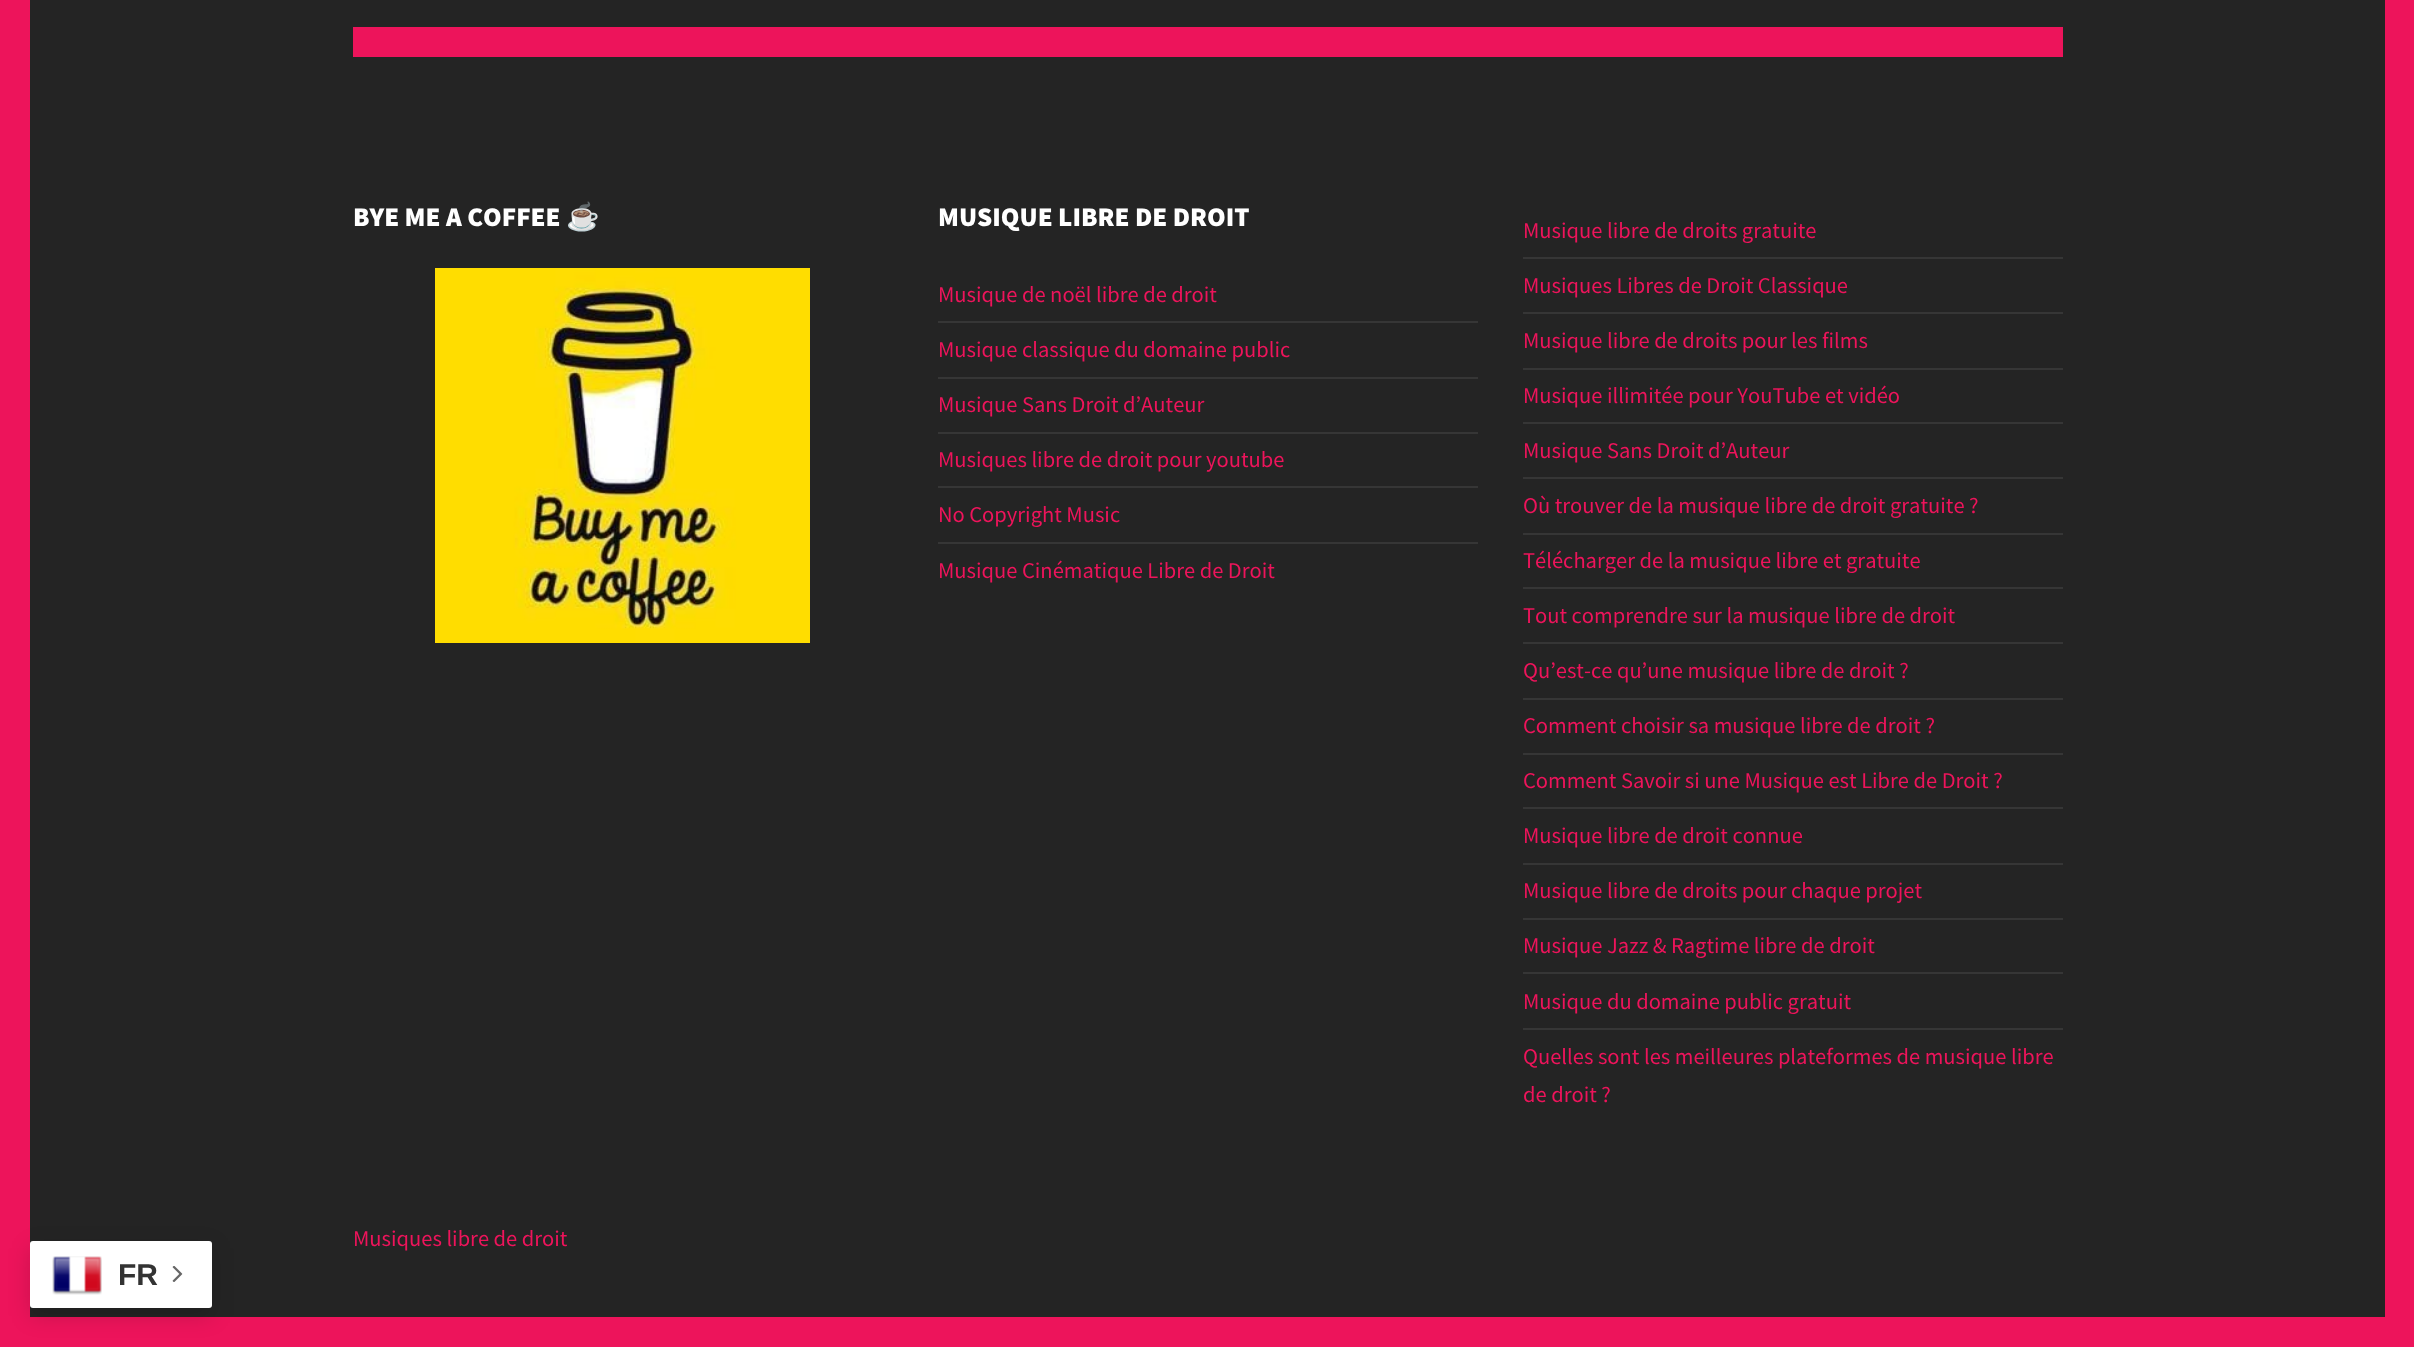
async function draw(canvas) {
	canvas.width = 2414;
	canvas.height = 1347;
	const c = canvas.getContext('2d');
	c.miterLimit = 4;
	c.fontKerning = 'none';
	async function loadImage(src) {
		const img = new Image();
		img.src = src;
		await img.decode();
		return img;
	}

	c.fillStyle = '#242424';
	c.fillRect(0, 0, 2414, 1347);
	c.strokeStyle = '#ed145b';
	c.lineWidth = 30;
	c.strokeRect(15, -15, 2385, 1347);
	c.fillStyle = '#ed145b';
	c.fillRect(353, 27, 1710, 30);
	c.font = '900 27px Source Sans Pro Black';
	c.fillStyle = '#fff';
	c.fillText('BYE ME A COFFEE', 353, 226);
	c.font = 'bold 27px Noto Color Emoji';
	c.fillText('☕', 566, 226);
	c.drawImage(await loadImage('img1.png'), 435, 268, 375, 375);
	c.font = '900 27px Source Sans Pro Black';
	c.fillText('MUSIQUE LIBRE DE DROIT', 938, 226);
	c.fillStyle = '#363636';
	c.fillRect(938, 321, 540, 2);
	c.font = '22.5px Source Sans Pro';
	c.fillStyle = '#ed145b';
	c.fillText('Musique de noël libre de droit', 938, 302);
	c.fillStyle = '#363636';
	c.fillRect(938, 377, 540, 2);
	c.fillStyle = '#ed145b';
	c.fillText('Musique classique du domaine public', 938, 357);
	c.fillStyle = '#363636';
	c.fillRect(938, 432, 540, 2);
	c.fillStyle = '#ed145b';
	c.fillText('Musique Sans Droit d’Auteur', 938, 412);
	c.fillStyle = '#363636';
	c.fillRect(938, 486, 540, 2);
	c.fillStyle = '#ed145b';
	c.fillText('Musiques libre de droit pour youtube', 938, 467);
	c.fillStyle = '#363636';
	c.fillRect(938, 542, 540, 2);
	c.fillStyle = '#ed145b';
	c.fillText('No Copyright Music', 938, 522);
	c.fillText('Musique Cinématique Libre de Droit', 938, 578);
	c.fillStyle = '#363636';
	c.fillRect(1523, 257, 540, 2);
	c.fillStyle = '#ed145b';
	c.fillText('Musique libre de droits gratuite', 1523, 238);
	c.fillStyle = '#363636';
	c.fillRect(1523, 312, 540, 2);
	c.fillStyle = '#ed145b';
	c.fillText('Musiques Libres de Droit Classique', 1523, 293);
	c.fillStyle = '#363636';
	c.fillRect(1523, 368, 540, 2);
	c.fillStyle = '#ed145b';
	c.fillText('Musique libre de droits pour les films', 1523, 348);
	c.fillStyle = '#363636';
	c.fillRect(1523, 422, 540, 2);
	c.fillStyle = '#ed145b';
	c.fillText('Musique illimitée pour YouTube et vidéo', 1523, 403);
	c.fillStyle = '#363636';
	c.fillRect(1523, 477, 540, 2);
	c.fillStyle = '#ed145b';
	c.fillText('Musique Sans Droit d’Auteur', 1523, 458);
	c.fillStyle = '#363636';
	c.fillRect(1523, 533, 540, 2);
	c.fillStyle = '#ed145b';
	c.fillText('Où trouver de la musique libre de droit gratuite ?', 1523, 513);
	c.fillStyle = '#363636';
	c.fillRect(1523, 587, 540, 2);
	c.fillStyle = '#ed145b';
	c.fillText('Télécharger de la musique libre et gratuite', 1523, 568);
	c.fillStyle = '#363636';
	c.fillRect(1523, 642, 540, 2);
	c.fillStyle = '#ed145b';
	c.fillText('Tout comprendre sur la musique libre de droit', 1523, 623);
	c.fillStyle = '#363636';
	c.fillRect(1523, 698, 540, 2);
	c.fillStyle = '#ed145b';
	c.fillText('Qu’est-ce qu’une musique libre de droit ?', 1523, 678);
	c.fillStyle = '#363636';
	c.fillRect(1523, 753, 540, 2);
	c.fillStyle = '#ed145b';
	c.fillText('Comment choisir sa musique libre de droit ?', 1523, 733);
	c.fillStyle = '#363636';
	c.fillRect(1523, 807, 540, 2);
	c.fillStyle = '#ed145b';
	c.fillText('Comment Savoir si une Musique est Libre de Droit ?', 1523, 788);
	c.fillStyle = '#363636';
	c.fillRect(1523, 863, 540, 2);
	c.fillStyle = '#ed145b';
	c.fillText('Musique libre de droit connue', 1523, 843);
	c.fillStyle = '#363636';
	c.fillRect(1523, 918, 540, 2);
	c.fillStyle = '#ed145b';
	c.fillText('Musique libre de droits pour chaque projet', 1523, 898);
	c.fillStyle = '#363636';
	c.fillRect(1523, 972, 540, 2);
	c.fillStyle = '#ed145b';
	c.fillText('Musique Jazz & Ragtime libre de droit', 1523, 953);
	c.fillStyle = '#363636';
	c.fillRect(1523, 1028, 540, 2);
	c.fillStyle = '#ed145b';
	for (const [text, x, y] of [
		['Musique du domaine public gratuit', 1523, 1009],
		['Quelles sont les meilleures plateformes de musique libre', 1523, 1064],
		['de droit ?', 1523, 1102],
		['Musiques libre de droit', 353, 1246],
	]) {
		c.fillText(text, x, y);
	}
	c.fillStyle = '#00000026';
	c.filter = 'blur(11px)';
	c.beginPath();
	c.roundRect(30, 1248, 182, 68, 3);
	c.fill();
	c.filter = 'none';
	c.fillStyle = '#fff';
	c.beginPath();
	c.roundRect(30, 1241, 182, 67, 3);
	c.fill();
	c.drawImage(await loadImage('img2.png'), 52, 1256, 50, 39);
	c.font = 'bold 30px Liberation Sans';
	c.fillStyle = '#333';
	c.fillText('FR', 118, 1285);
	c.drawImage(await loadImage('img3.png'), 172, 1266, 11, 16);
}

draw(document.querySelector('canvas'));
